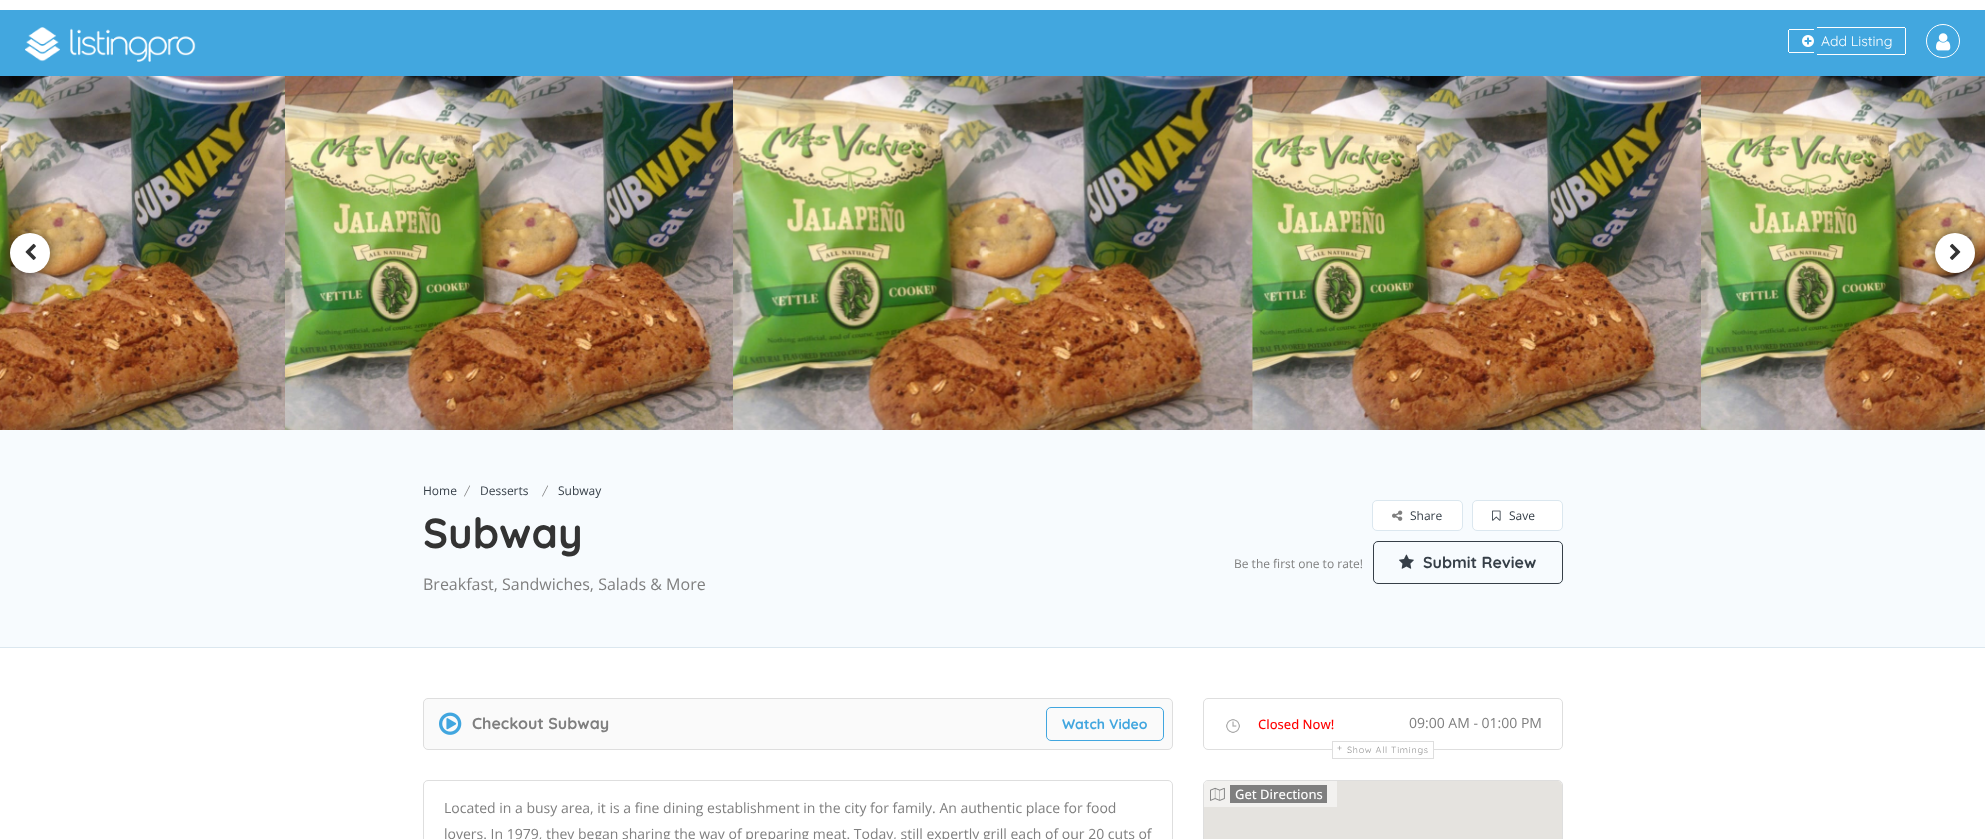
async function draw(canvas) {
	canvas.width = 1985;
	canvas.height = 839;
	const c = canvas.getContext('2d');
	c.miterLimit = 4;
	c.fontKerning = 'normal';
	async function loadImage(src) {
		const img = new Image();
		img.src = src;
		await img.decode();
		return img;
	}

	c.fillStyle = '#f7fbfe';
	c.fillRect(0, 0, 1985, 839);
	c.fillStyle = '#fff';
	c.fillRect(0, 0, 1985, 10);
	c.fillStyle = '#42a7df';
	c.fillRect(0, 10, 1985, 66);
	c.drawImage(await loadImage('img1.png'), 25, 27, 171, 35);
	for (const [x, y, w, h, color] of [
		[1789, 29, 25, 1, '#fff'],
		[1789, 52, 25, 1, '#fff'],
		[1788, 30, 1, 22, '#fff'],
		[1817, 27, 88, 1, '#fff'],
		[1905, 28, 1, 26, '#fff'],
		[1817, 54, 88, 1, '#fff'],
	]) {
		c.fillStyle = color;
		c.fillRect(x, y, w, h);
	}
	c.drawImage(await loadImage('img2.png'), 1802, 35, 12, 12);
	c.font = '14px Quicksand';
	c.fillText('Add Listing', 1821, 46);
	c.beginPath();
	c.arc(1943, 41, 16.5, 0, 2 * Math.PI);
	c.strokeStyle = '#fff';
	c.stroke();
	c.drawImage(await loadImage('img3.png'), 1936, 33, 15, 18);
	c.drawImage(await loadImage('img4.png'), 0, 76, 285, 354);
	c.drawImage(await loadImage('img5.png'), 285, 76, 448, 354);
	c.drawImage(await loadImage('img7.png'), 1252, 76, 449, 354);
	c.drawImage(await loadImage('img6.png'), 733, 76, 520, 354);
	c.drawImage(await loadImage('img8.png'), 1701, 76, 284, 354);
	c.fillStyle = '#000000a8';
	c.filter = 'blur(7px)';
	c.beginPath();
	c.roundRect(10, 234, 40, 40, 20);
	c.fill();
	c.filter = 'none';
	c.fillStyle = '#fff';
	c.beginPath();
	c.arc(30, 253, 20, 0, 2 * Math.PI);
	c.fill();
	c.drawImage(await loadImage('img9.png'), 25, 243, 11, 17);
	c.fillStyle = '#000000a8';
	c.filter = 'blur(7px)';
	c.beginPath();
	c.roundRect(1935, 234, 40, 40, 20);
	c.fill();
	c.filter = 'none';
	c.fillStyle = '#fff';
	c.beginPath();
	c.arc(1955, 253, 20, 0, 2 * Math.PI);
	c.fill();
	c.drawImage(await loadImage('img10.png'), 1949, 243, 12, 17);
	c.fillStyle = '#dbe7ef';
	c.fillRect(0, 647, 1985, 1);
	c.font = '12px Open Sans';
	c.fillStyle = '#363f48';
	c.fillText('Home', 423, 495);
	c.font = '12px Quicksand';
	c.fillStyle = '#7f7f7f';
	c.fillText('/', 464, 495);
	c.font = '12px Open Sans';
	c.fillStyle = '#363f48';
	c.fillText('Desserts', 480, 495);
	c.font = '12px Quicksand';
	c.fillStyle = '#7f7f7f';
	c.fillText('/', 542, 495);
	c.font = '12px Open Sans';
	c.fillStyle = '#363f48';
	c.fillText('Subway', 558, 495);
	c.font = 'bold 42px Quicksand';
	c.fillStyle = '#333';
	c.fillText('Subway', 423, 548);
	c.font = '16px Open Sans';
	c.fillStyle = '#7f7f7f';
	c.fillText('Breakfast, Sandwiches, Salads & More', 423, 590);
	c.fillStyle = '#fff';
	c.beginPath();
	c.roundRect(1372.5, 500.5, 90, 30, 4.5);
	c.fill();
	c.strokeStyle = '#dbe7ef';
	c.stroke();
	c.drawImage(await loadImage('img11.png'), 1392, 510, 11, 11);
	c.font = '12px Open Sans';
	c.fillStyle = '#363f48';
	c.fillText('Share', 1410, 520);
	c.fillStyle = '#fff';
	c.beginPath();
	c.roundRect(1472.5, 500.5, 90, 30, 4.5);
	c.fill();
	c.stroke();
	c.drawImage(await loadImage('img12.png'), 1492, 510, 9, 11);
	c.fillStyle = '#363f48';
	c.fillText('Save', 1509, 520);
	c.fillStyle = '#7f7f7f';
	c.fillText('Be the first one to rate!', 1234, 568);
	c.beginPath();
	c.roundRect(1373.5, 541.5, 189, 42, 4.5);
	c.strokeStyle = '#363f48';
	c.stroke();
	c.drawImage(await loadImage('img13.png'), 1399, 554, 15, 15);
	c.font = 'bold 16px Quicksand';
	c.fillStyle = '#363f48';
	c.fillText('Submit Review', 1423, 568);
	c.fillStyle = '#fff';
	c.fillRect(0, 648, 1985, 191);
	c.fillStyle = '#fafafa';
	c.beginPath();
	c.roundRect(423.5, 698.5, 749, 51, 4.5);
	c.fill();
	c.strokeStyle = '#dedede';
	c.stroke();
	c.drawImage(await loadImage('img14.png'), 439, 712, 23, 23);
	c.fillStyle = '#7f7f7f';
	c.fillText('Checkout Subway', 472, 729);
	c.beginPath();
	c.roundRect(1046.5, 707.5, 117, 33, 4.5);
	c.strokeStyle = '#41a6df';
	c.stroke();
	c.font = 'bold 14px Quicksand';
	c.fillStyle = '#41a6df';
	c.fillText('Watch Video', 1062, 729);
	c.beginPath();
	c.roundRect(423.5, 780.5, 749, 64, 4.5);
	c.strokeStyle = '#dedede';
	c.stroke();
	c.font = '14px Open Sans';
	c.fillStyle = '#7f7f7f';
	c.fillText('Located in a busy area, it is a fine dining establishment in the city for family. An authentic place for food', 444, 813);
	c.fillText('lovers. In 1979, they began sharing the way of preparing meat. Today, still expertly grill each of our 20 cuts of', 444, 839);
	c.beginPath();
	c.roundRect(1203.5, 698.5, 359, 51, 4.5);
	c.stroke();
	c.drawImage(await loadImage('img15.png'), 1226, 719, 14, 14);
	c.font = '500 13px Open Sans';
	c.fillStyle = '#f00';
	c.fillText('Closed Now!', 1258, 729);
	c.font = '14px Open Sans';
	c.fillStyle = '#7f7f7f';
	c.fillText('09:00 AM - 01:00 PM', 1409, 728);
	c.fillStyle = '#fff';
	c.fillRect(1333, 749, 100, 1);
	c.strokeRect(1332.5, 741.5, 101, 17);
	c.letterSpacing = '0.75px';
	c.font = '9px Quicksand';
	c.fillStyle = '#939393';
	c.fillText('+', 1337, 751);
	c.fillText('Show All Timings', 1347, 753);
	c.beginPath();
	c.roundRect(1203.5, 780.5, 359, 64, 4.5);
	c.stroke();
	c.fillStyle = '#e5e3df';
	c.beginPath();
	c.moveTo(1208, 781);
	c.lineTo(1558, 781);
	c.bezierCurveTo(1560, 781, 1562, 783, 1562, 785);
	c.lineTo(1562, 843);
	c.lineTo(1204, 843);
	c.lineTo(1204, 785);
	c.bezierCurveTo(1204, 783, 1206, 781, 1208, 781);
	c.closePath();
	c.fill();
	c.fillStyle = '#ffffff80';
	c.beginPath();
	c.roundRect(1204, 781, 133, 26, [4, 0, 0, 0]);
	c.fill();
	c.drawImage(await loadImage('img16.png'), 1210, 787, 15, 14);
	c.fillStyle = '#7f7f7f';
	c.fillRect(1230, 785, 97, 18);
	c.letterSpacing = '0px';
	c.font = '500 13px Open Sans';
	c.fillStyle = '#fff';
	c.fillText('Get Directions', 1235, 799);
}

draw(document.querySelector('canvas'));
